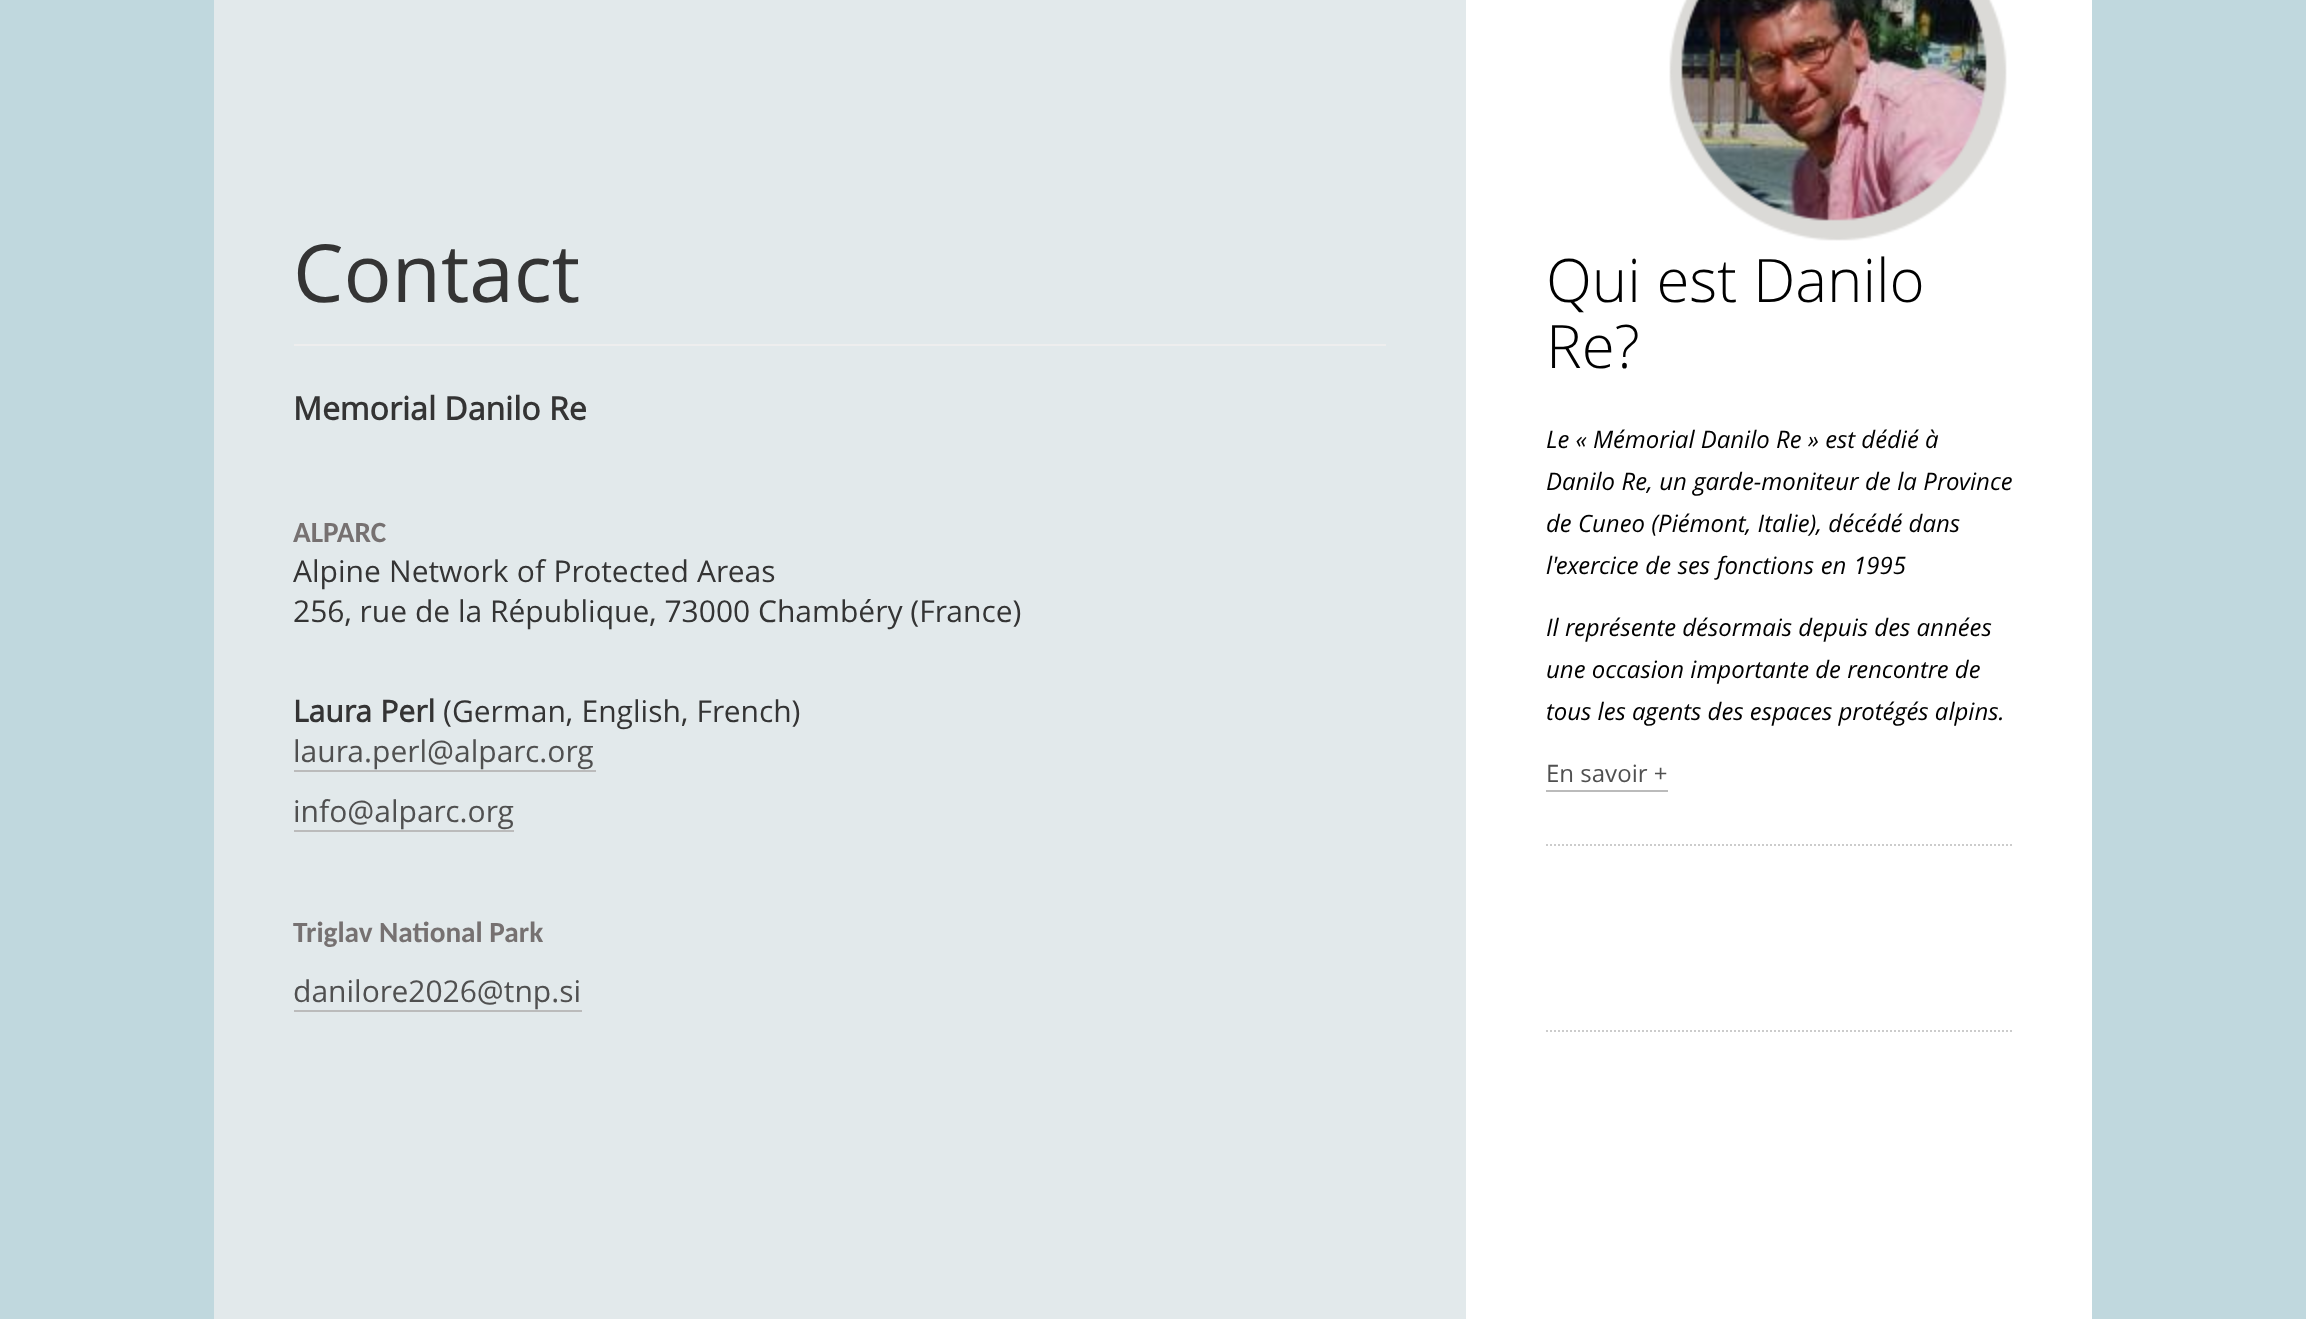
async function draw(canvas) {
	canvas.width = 2306;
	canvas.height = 1319;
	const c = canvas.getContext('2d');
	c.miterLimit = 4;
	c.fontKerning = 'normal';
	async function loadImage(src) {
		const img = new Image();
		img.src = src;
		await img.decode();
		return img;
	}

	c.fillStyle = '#c0d8de';
	c.fillRect(0, 0, 2306, 1319);
	c.fillStyle = '#e2e9eb';
	c.fillRect(214, 0, 1252, 1319);
	c.fillStyle = '#eee';
	c.fillRect(294, 344, 1092, 2);
	c.font = '80px Open Sans';
	c.fillStyle = '#343434';
	c.fillText('Contact', 293, 302);
	c.font = 'bold 32px Open Sans';
	c.fillText('Memorial Danilo Re', 293, 420);
	c.font = 'bold 29.25px Carlito';
	c.fillStyle = '#767171';
	c.fillText('ALPARC', 293, 542);
	c.wordSpacing = '0.5px';
	c.font = '30px Open Sans';
	c.fillStyle = '#343434';
	c.fillText('Alpine Network of Protected Areas', 293, 582);
	c.wordSpacing = '0px';
	c.fillText('256, rue de la République, 73000 Chambéry (France)', 293, 622);
	c.wordSpacing = '0.5px';
	c.font = 'bold 30px Open Sans';
	c.fillText('Laura Perl', 293, 722);
	c.font = '30px Open Sans';
	c.fillText('(German, English, French)', 443, 722);
	c.wordSpacing = '0px';
	c.fillStyle = '#505050';
	c.fillText('laura.perl@alparc.org', 293, 762);
	c.fillStyle = '#bbb';
	c.fillRect(294, 770, 302, 2);
	c.fillStyle = '#505050';
	c.fillText('info@alparc.org', 293, 822);
	c.fillStyle = '#bbb';
	c.fillRect(294, 830, 220, 2);
	c.font = 'bold 29.25px Carlito';
	c.fillStyle = '#767171';
	c.fillText('Triglav National Park', 293, 942);
	c.font = '30px Open Sans';
	c.fillStyle = '#505050';
	c.fillText('danilore2026@tnp.si', 293, 1002);
	c.fillStyle = '#bbb';
	c.fillRect(294, 1010, 288, 2);
	c.fillStyle = '#fff';
	c.fillRect(1466, 0, 626, 1319);
	c.drawImage(await loadImage('img1.png'), 1669, 0, 338, 241);
	c.font = '300 60px Open Sans';
	c.fillStyle = '#000';
	c.fillText('Qui est Danilo', 1546, 302);
	c.fillText('Re?', 1546, 368);
	c.font = 'italic 24px Open Sans';
	c.fillText('Le « Mémorial Danilo Re » est dédié à', 1546, 448);
	c.wordSpacing = '0.25px';
	c.fillText('Danilo Re, un garde-moniteur de la Province', 1546, 490);
	c.wordSpacing = '0px';
	c.fillText('de Cuneo (Piémont, Italie), décédé dans', 1546, 532);
	c.wordSpacing = '0.5px';
	c.fillText('l\'exercice de ses fonctions en 1995', 1546, 574);
	c.wordSpacing = '0px';
	for (const [text, x, y] of [
		['Il représente désormais depuis des années', 1546, 636],
		['une occasion importante de rencontre de', 1546, 678],
		['tous les agents des espaces protégés alpins.', 1546, 720],
	]) {
		c.fillText(text, x, y);
	}
	c.font = '24px Open Sans';
	c.fillStyle = '#505050';
	c.fillText('En savoir +', 1546, 782);
	c.fillStyle = '#bbb';
	c.fillRect(1546, 790, 122, 2);
	c.beginPath();
	c.moveTo(1546, 845);
	c.lineTo(2012, 845);
	c.strokeStyle = '#ccc';
	c.lineWidth = 2;
	c.setLineDash([2, 2]);
	c.stroke();
	c.beginPath();
	c.moveTo(1546, 1031);
	c.lineTo(2012, 1031);
	c.stroke();
}

draw(document.querySelector('canvas'));
